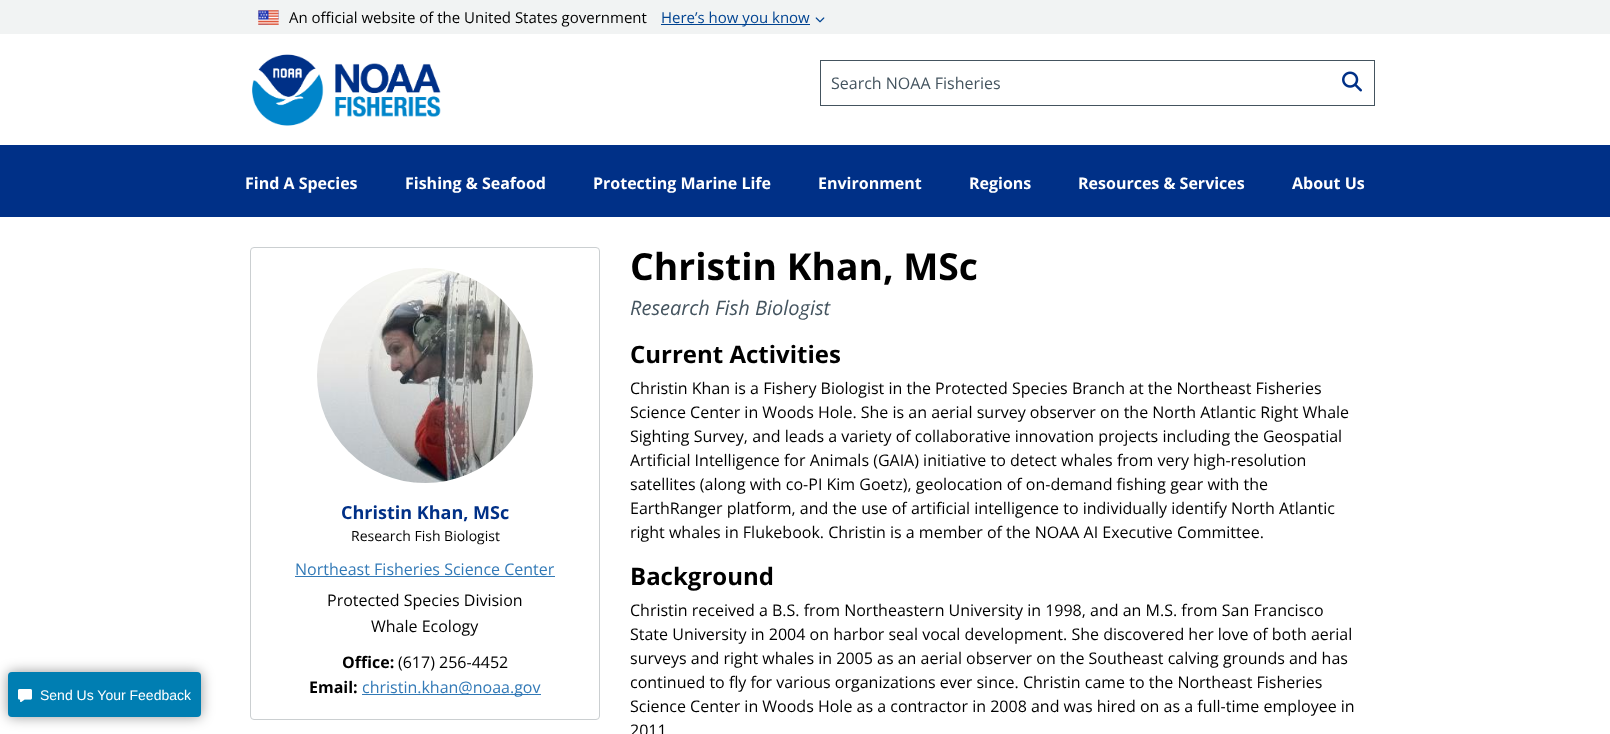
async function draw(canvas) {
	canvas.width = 1610;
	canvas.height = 734;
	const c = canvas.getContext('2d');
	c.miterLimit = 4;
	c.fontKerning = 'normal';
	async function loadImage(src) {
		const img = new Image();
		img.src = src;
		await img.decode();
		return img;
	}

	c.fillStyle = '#fff';
	c.fillRect(0, 0, 1610, 734);
	c.fillStyle = '#00000066';
	c.filter = 'blur(6.5px)';
	c.beginPath();
	c.roundRect(8, 672, 193, 45, 4);
	c.fill();
	c.filter = 'none';
	c.fillStyle = '#007eb2';
	c.beginPath();
	c.roundRect(8, 672, 193, 45, 4);
	c.fill();
	c.drawImage(await loadImage('img1.png'), 18, 689, 14, 13);
	c.font = '14px Liberation Sans';
	c.fillStyle = '#fff';
	c.fillText('Send Us Your Feedback', 40, 700);
	c.fillStyle = '#f1f3f3';
	c.fillRect(0, 0, 1610, 34);
	c.drawImage(await loadImage('img2.png'), 258, 10, 21, 15);
	c.font = '15px Open Sans';
	c.fillStyle = '#000';
	c.fillText('An official website of the United States government', 289, 23);
	c.fillStyle = '#004391';
	c.fillRect(661, 24, 149, 1);
	c.fillText('Here’s how you know', 661, 23);
	c.drawImage(await loadImage('img3.png'), 815, 17, 10, 6);
	c.drawImage(await loadImage('img4.png'), 252, 54, 189, 72);
	c.strokeStyle = '#44545f';
	c.strokeRect(820.5, 60.5, 554, 45);
	c.font = '16px Open Sans';
	c.fillStyle = '#44545f';
	c.fillText('Search NOAA Fisheries', 831, 89);
	c.drawImage(await loadImage('img5.png'), 1342, 71, 20, 21);
	c.fillStyle = '#003087';
	c.fillRect(0, 145, 1610, 72);
	c.font = 'bold 16px Open Sans';
	c.fillStyle = '#fff';
	for (const [text, x, y] of [
		['Find A Species', 245, 189],
		['Fishing & Seafood', 405, 189],
		['Protecting Marine Life', 593, 189],
		['Environment', 818, 189],
		['Regions', 969, 189],
		['Resources & Services', 1078, 189],
		['About Us', 1292, 189],
	]) {
		c.fillText(text, x, y);
	}
	c.beginPath();
	c.roundRect(250.5, 247.5, 349, 472, 3.5);
	c.strokeStyle = '#cbcfd1';
	c.stroke();
	c.drawImage(await loadImage('img6.png'), 317, 268, 216, 215);
	c.font = 'bold 18px Open Sans';
	c.fillStyle = '#003087';
	c.fillText('Christin Khan, MSc', 341, 519);
	c.font = '14px Open Sans';
	c.fillStyle = '#000';
	c.fillText('Research Fish Biologist', 351, 541);
	c.font = '16px Open Sans';
	c.fillStyle = '#337ab7';
	c.fillText('Northeast Fisheries Science Center', 295, 575);
	c.fillRect(295, 576, 260, 1);
	c.fillStyle = '#000';
	c.fillText('Protected Species Division', 327, 606);
	c.fillText('Whale Ecology', 371, 632);
	c.font = 'bold 16px Open Sans';
	c.fillText('Office:', 342, 668);
	c.font = '16px Open Sans';
	c.fillText('(617) 256-4452', 398, 668);
	c.font = 'bold 16px Open Sans';
	c.fillText('Email:', 309, 693);
	c.fillStyle = '#337ab7';
	c.fillRect(362, 694, 179, 1);
	c.font = '16px Open Sans';
	c.fillText('christin.khan@noaa.gov', 362, 693);
	c.font = 'bold 37.25px Open Sans';
	c.fillStyle = '#000';
	c.fillText('Christin Khan, MSc', 630, 280);
	c.font = 'italic 20px Open Sans';
	c.fillStyle = '#44545f';
	c.fillText('Research Fish Biologist', 630, 315);
	c.font = 'bold 24px Open Sans';
	c.fillStyle = '#000';
	c.fillText('Current Activities', 630, 363);
	c.font = '16px Open Sans';
	for (const [text, x, y] of [
		['Christin Khan is a Fishery Biologist in the Protected Species Branch at the Northeast Fisheries', 630, 394],
		['Science Center in Woods Hole. She is an aerial survey observer on the North Atlantic Right Whale', 630, 418],
		['Sighting Survey, and leads a variety of collaborative innovation projects including the Geospatial', 630, 442],
		['Artificial Intelligence for Animals (GAIA) initiative to detect whales from very high-resolution', 630, 466],
		['satellites (along with co-PI Kim Goetz), geolocation of on-demand fishing gear with the', 630, 490],
		['EarthRanger platform, and the use of artificial intelligence to individually identify North Atlantic', 630, 514],
		['right whales in Flukebook. Christin is a member of the NOAA AI Executive Committee.', 630, 538],
	]) {
		c.fillText(text, x, y);
	}
	c.font = 'bold 24px Open Sans';
	c.fillText('Background', 630, 585);
	c.font = '16px Open Sans';
	for (const [text, x, y] of [
		['Christin received a B.S. from Northeastern University in 1998, and an M.S. from San Francisco', 630, 616],
		['State University in 2004 on harbor seal vocal development. She discovered her love of both aerial', 630, 640],
		['surveys and right whales in 2005 as an aerial observer on the Southeast calving grounds and has', 630, 664],
		['continued to fly for various organizations ever since. Christin came to the Northeast Fisheries', 630, 688],
		['Science Center in Woods Hole as a contractor in 2008 and was hired on as a full-time employee in', 630, 712],
		['2011', 630, 736],
	]) {
		c.fillText(text, x, y);
	}
}

draw(document.querySelector('canvas'));
